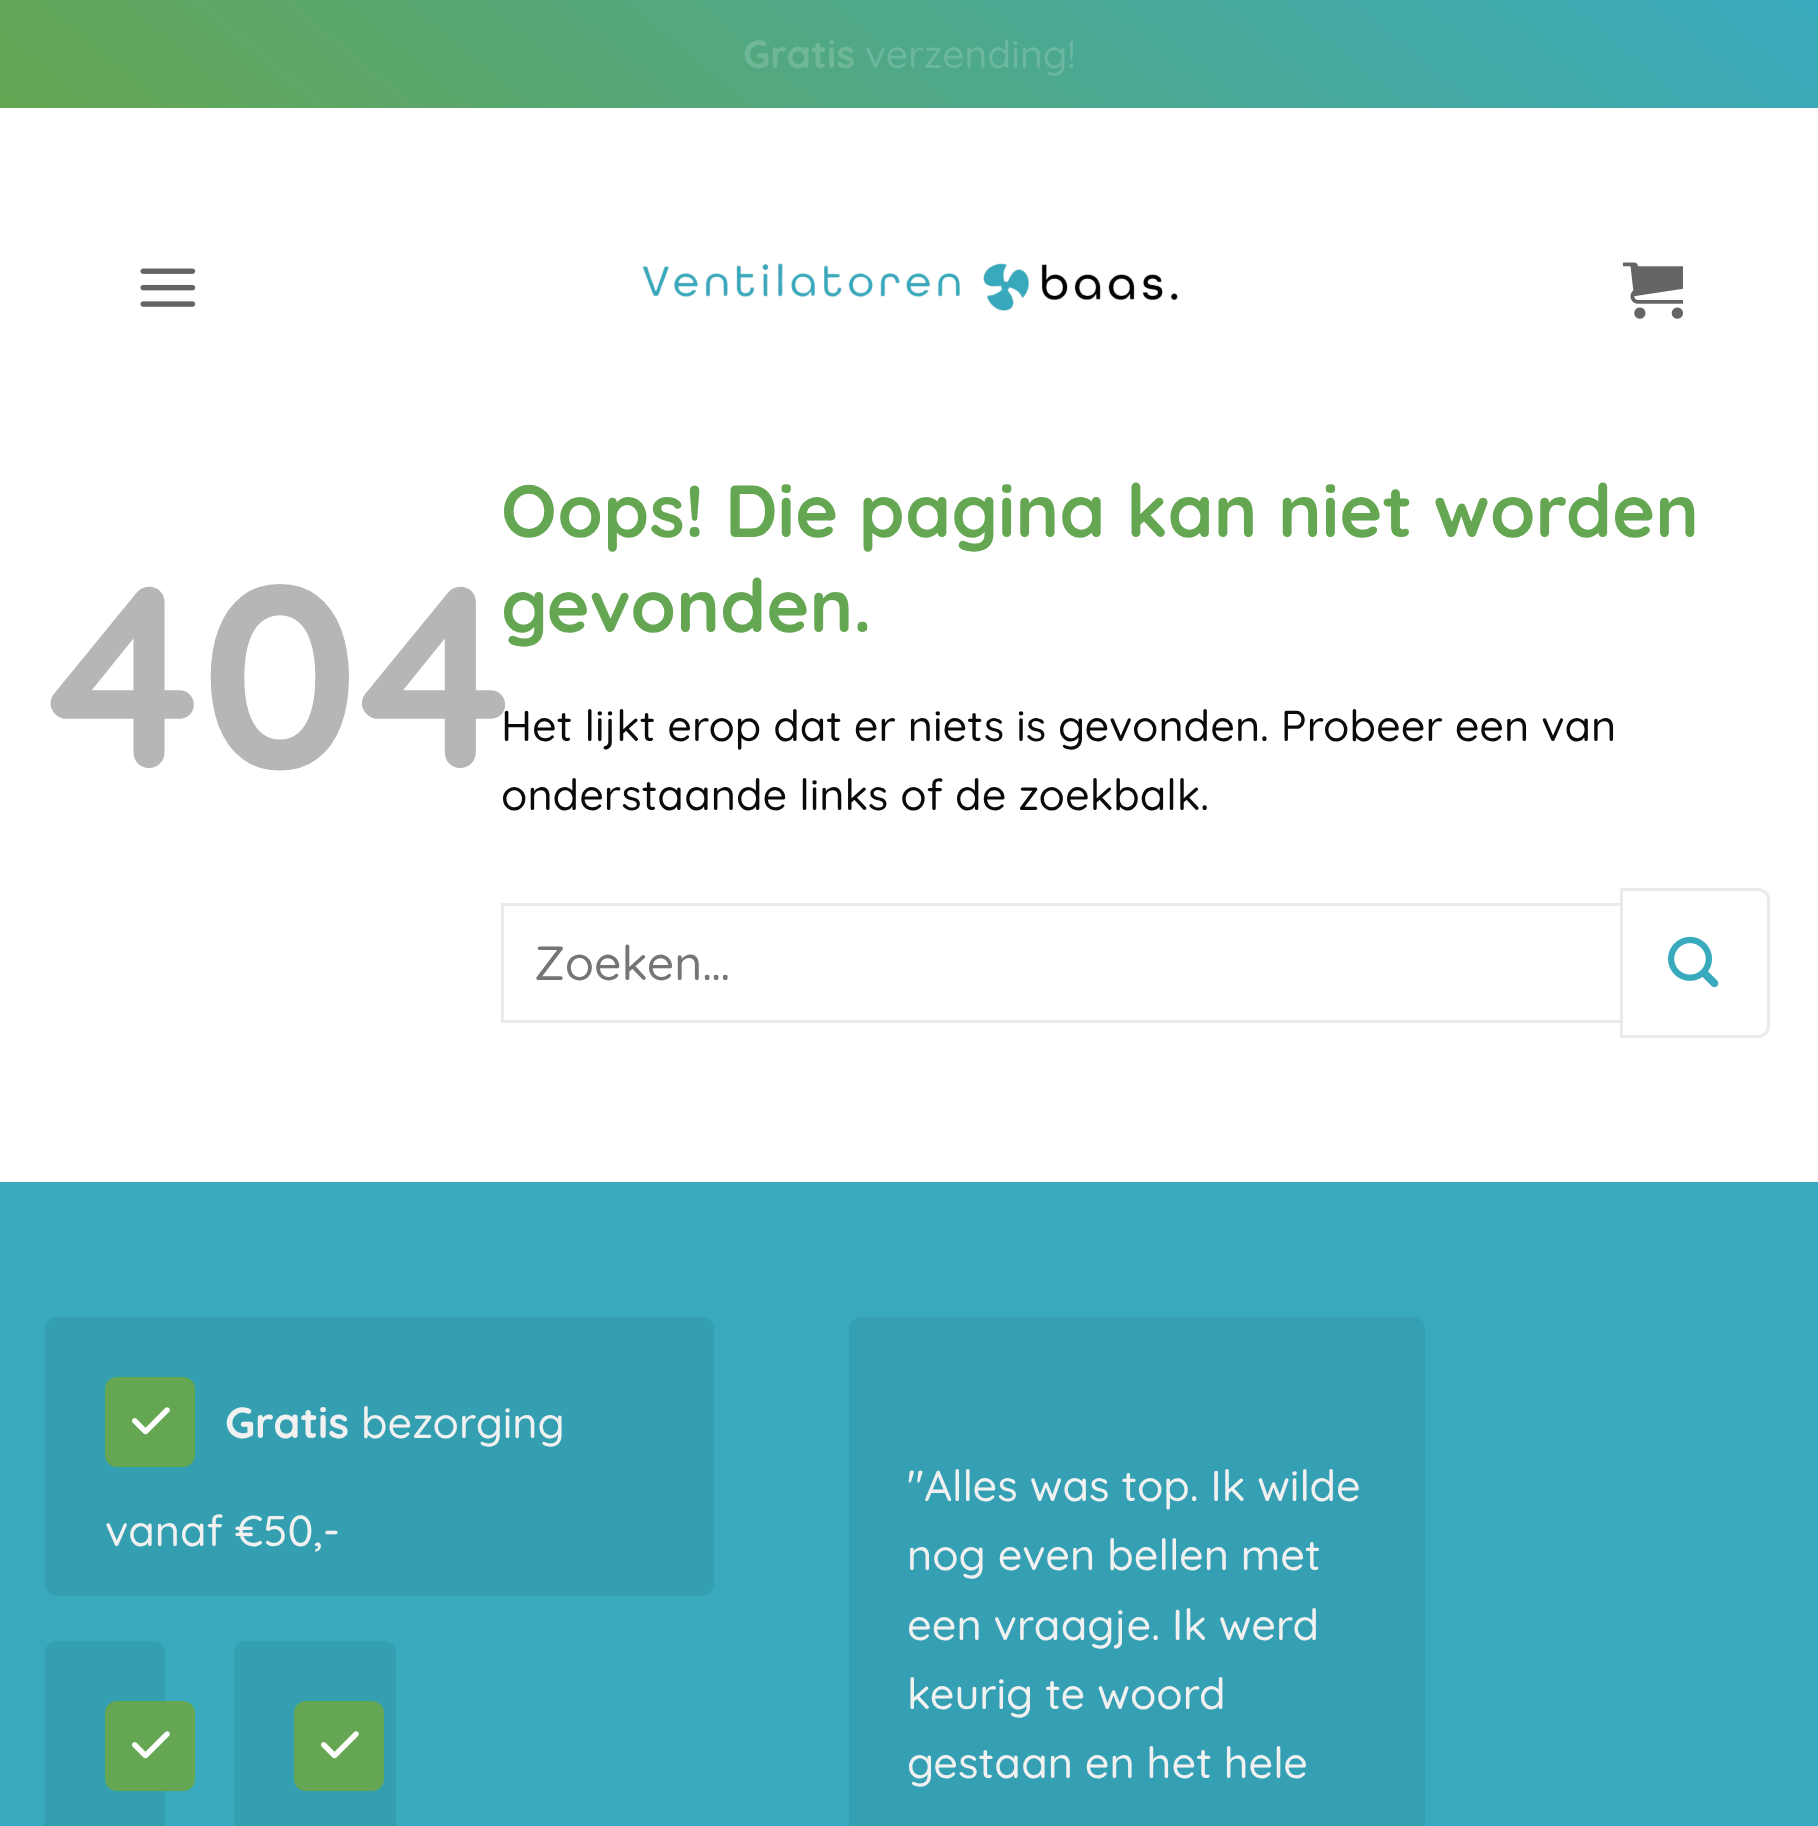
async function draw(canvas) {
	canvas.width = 1818;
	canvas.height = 1826;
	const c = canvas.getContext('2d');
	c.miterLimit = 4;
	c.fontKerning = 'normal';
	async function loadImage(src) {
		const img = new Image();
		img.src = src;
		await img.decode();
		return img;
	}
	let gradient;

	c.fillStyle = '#fff';
	c.fillRect(0, 0, 1818, 1826);
	gradient = c.createLinearGradient(507, 533, 1311, -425);
	gradient.addColorStop(0, '#65a652');
	gradient.addColorStop(1, '#39aabe');
	c.fillStyle = gradient;
	c.fillRect(0, 0, 1818, 108);
	c.font = 'bold 39px Quicksand';
	c.fillStyle = '#6fb797';
	c.fillText('Gratis', 743, 68);
	c.font = '500 39px Quicksand';
	c.fillStyle = '#6cb79f';
	c.fillText('verzending!', 865, 68);
	c.drawImage(await loadImage('img1.png'), 140, 268, 56, 39);
	c.drawImage(await loadImage('img2.png'), 642, 263, 536, 48);
	c.drawImage(await loadImage('img3.png'), 1623, 262, 60, 57);
	c.font = 'bold 259px Quicksand';
	c.fillStyle = '#b6b6b6';
	c.fillText('404', 48, 768);
	c.font = 'bold 73.5px Quicksand';
	c.fillStyle = '#65a652';
	c.fillText('Oops! Die pagina kan niet worden', 501, 537);
	c.fillText('gevonden.', 501, 632);
	c.font = '500 43.2px Quicksand';
	c.fillStyle = '#0a0a0a';
	c.fillText('Het lijkt erop dat er niets is gevonden. Probeer een van', 501, 741);
	c.fillText('onderstaande links of de zoekbalk.', 501, 810);
	for (const [x, y, w, h, color] of [
		[501, 903, 1119, 3, '#eaeaea'],
		[501, 1020, 1119, 3, '#eaeaea'],
		[501, 903, 3, 120, '#eaeaea'],
	]) {
		c.fillStyle = color;
		c.fillRect(x, y, w, h);
	}
	c.font = '500 48px Quicksand';
	c.fillStyle = '#757575';
	c.fillText('Zoeken…', 534, 980);
	c.beginPath();
	c.roundRect(1621.5, 889.5, 147, 147, [0, 10.5, 10.5, 0]);
	c.strokeStyle = '#eaeaea';
	c.lineWidth = 3;
	c.stroke();
	c.drawImage(await loadImage('img4.png'), 1668, 936, 51, 52);
	c.fillStyle = '#39aabe';
	c.fillRect(0, 1182, 1818, 644);
	c.fillStyle = '#359fb2';
	c.beginPath();
	c.roundRect(45, 1317, 669, 279, 12);
	c.fill();
	c.fillStyle = '#65a652';
	c.beginPath();
	c.roundRect(105, 1377, 90, 90, 12);
	c.fill();
	c.drawImage(await loadImage('img5.png'), 132, 1407, 38, 28);
	c.font = 'bold 43.2px Quicksand';
	c.fillStyle = '#f1f1f1';
	c.fillText('Gratis', 225, 1438);
	c.font = '500 43.2px Quicksand';
	c.fillText('bezorging', 361, 1438);
	c.fillText('vanaf €50,-', 105, 1546);
	c.fillStyle = '#359fb2';
	c.beginPath();
	c.roundRect(45, 1641, 120, 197, 12);
	c.fill();
	c.fillStyle = '#65a652';
	c.beginPath();
	c.roundRect(105, 1701, 90, 90, 12);
	c.fill();
	c.drawImage(await loadImage('img5.png'), 132, 1731, 38, 28);
	c.fillStyle = '#359fb2';
	c.beginPath();
	c.roundRect(234, 1641, 162, 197, 12);
	c.fill();
	c.fillStyle = '#65a652';
	c.beginPath();
	c.roundRect(294, 1701, 90, 90, 12);
	c.fill();
	c.drawImage(await loadImage('img5.png'), 321, 1731, 38, 28);
	c.fillStyle = '#359fb3';
	c.beginPath();
	c.roundRect(849, 1317, 576, 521, 12);
	c.fill();
	c.fillStyle = '#f1f1f1';
	for (const [text, x, y] of [
		['"Alles was top. Ik wilde', 907, 1501],
		['nog even bellen met', 907, 1570],
		['een vraagje. Ik werd', 907, 1640],
		['keurig te woord', 907, 1709],
		['gestaan en het hele', 907, 1778],
	]) {
		c.fillText(text, x, y);
	}
}

draw(document.querySelector('canvas'));
